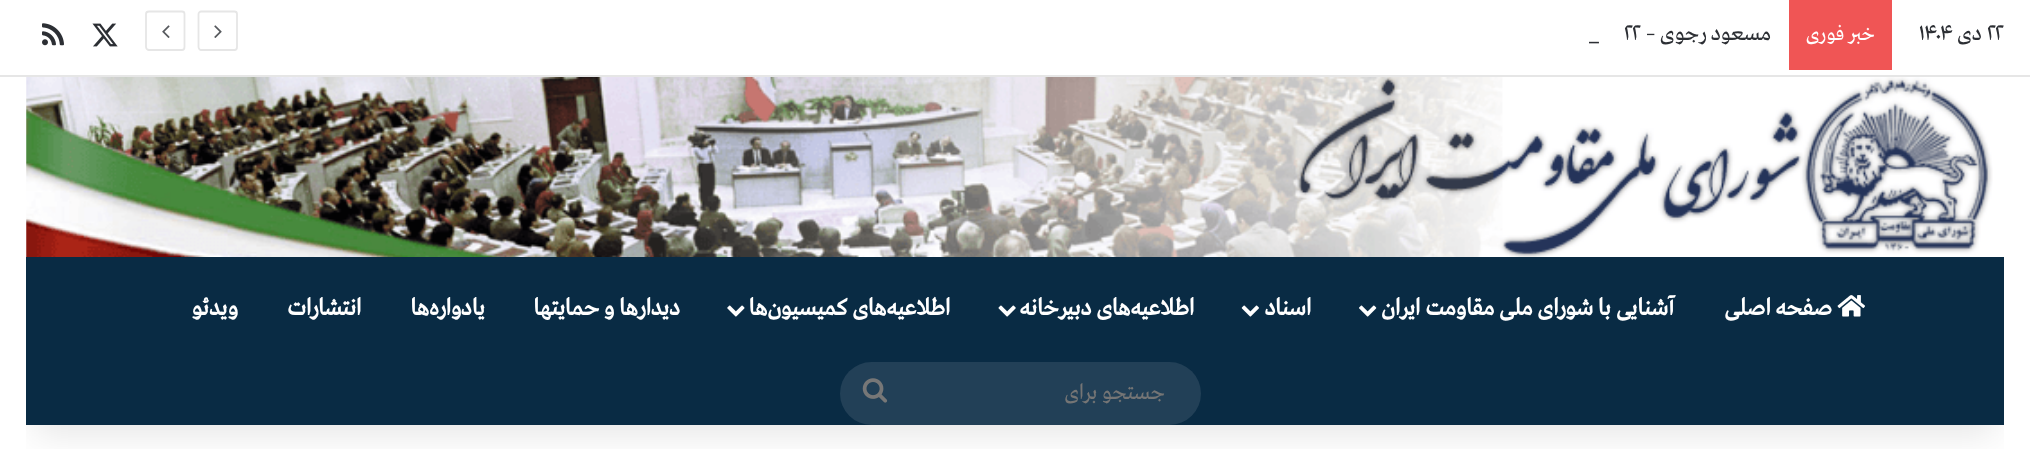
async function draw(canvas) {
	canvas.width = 2030;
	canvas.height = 450;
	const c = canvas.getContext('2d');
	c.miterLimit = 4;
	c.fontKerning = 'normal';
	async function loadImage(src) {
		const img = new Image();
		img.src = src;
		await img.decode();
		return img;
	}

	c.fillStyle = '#fff';
	c.fillRect(0, 0, 2030, 450);
	c.save();
	c.beginPath();
	c.rect(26, 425, 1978, 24);
	c.clip();
	c.fillStyle = '#0000001a';
	c.filter = 'blur(17.5px)';
	c.beginPath();
	c.rect(35, 79, 1960, 355);
	c.fill();
	c.filter = 'none';
	c.restore();
	c.fillStyle = '#e6e6e6';
	c.fillRect(0, 75, 2030, 2);
	c.font = '22.75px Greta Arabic';
	c.fillStyle = '#2c2f34';
	c.fillText('۲۲', 1987, 40);
	c.direction = 'rtl';
	c.fillText('دی', 1982, 40);
	c.direction = 'ltr';
	c.fillText('۱۴۰۴', 1919, 40);
	c.fillStyle = '#f05555';
	c.fillRect(1789, 0, 103, 70);
	c.direction = 'rtl';
	c.font = '21px Greta Arabic';
	c.fillStyle = '#fff';
	c.fillText('خبر فوری', 1875, 40);
	c.font = '22.75px Greta Arabic';
	c.fillStyle = '#2c2f34';
	c.fillText('مسعود رجوی –', 1771, 40);
	c.direction = 'ltr';
	c.fillText('۲۲', 1624, 40);
	c.fillText('_', 1589, 40);
	c.beginPath();
	c.moveTo(234.5, 50);
	c.lineTo(201, 50);
	c.bezierCurveTo(200, 50, 198.5, 48.5, 198.5, 47);
	c.lineTo(198.5, 14);
	c.bezierCurveTo(198.5, 12.5, 200, 11.5, 201, 11.5);
	c.lineTo(234.5, 11.5);
	c.bezierCurveTo(236, 11.5, 237, 12.5, 237, 14);
	c.lineTo(237, 47);
	c.bezierCurveTo(237, 48.5, 236, 50, 234.5, 50);
	c.closePath();
	c.strokeStyle = '#e6e6e6';
	c.lineWidth = 1.8;
	c.stroke();
	c.drawImage(await loadImage('img1.png'), 214, 25, 8, 13);
	c.beginPath();
	c.moveTo(182, 50);
	c.lineTo(149, 50);
	c.bezierCurveTo(147.5, 50, 146, 48.5, 146, 47);
	c.lineTo(146, 14);
	c.bezierCurveTo(146, 12.5, 147.5, 11.5, 149, 11.5);
	c.lineTo(182, 11.5);
	c.bezierCurveTo(183.5, 11.5, 184.5, 12.5, 184.5, 14);
	c.lineTo(184.5, 47);
	c.bezierCurveTo(184.5, 48.5, 183.5, 50, 182, 50);
	c.closePath();
	c.stroke();
	c.drawImage(await loadImage('img2.png'), 162, 25, 8, 13);
	c.drawImage(await loadImage('img3.png'), 92, 23, 26, 24);
	c.drawImage(await loadImage('img4.png'), 42, 23, 22, 23);
	c.drawImage(await loadImage('img5.png'), 26, 77, 1967, 180);
	c.fillStyle = '#092b44';
	c.fillRect(26, 257, 1978, 168);
	c.drawImage(await loadImage('img6.png'), 1837, 295, 28, 22);
	c.direction = 'rtl';
	c.font = 'bold 24.5px Greta Arabic';
	c.fillStyle = '#fff';
	c.fillText('صفحه اصلی', 1832, 315);
	c.fillText('آشنایی با شورای ملی مقاومت ایران', 1674, 315);
	c.drawImage(await loadImage('img7.png'), 1359, 305, 18, 12);
	c.fillText('اسناد', 1311, 315);
	c.drawImage(await loadImage('img8.png'), 1241, 305, 18, 12);
	c.fillText('اطلاعیه‌های دبیرخانه', 1194, 315);
	c.drawImage(await loadImage('img9.png'), 998, 305, 18, 12);
	c.fillText('اطلاعیه‌های کمیسیون‌‌ها', 950, 315);
	c.drawImage(await loadImage('img10.png'), 727, 305, 18, 12);
	for (const [text, x, y] of [
		['دیدارها و حمایتها', 680, 315],
		['یادواره‌ها', 485, 315],
		['انتشارات', 361, 315],
		['ویدئو', 238, 315],
	]) {
		c.fillText(text, x, y);
	}
	c.fillStyle = '#224057';
	c.beginPath();
	c.roundRect(840, 362, 361, 63, 31.5);
	c.fill();
	c.font = '22.75px Greta Arabic';
	c.fillStyle = '#757575';
	c.fillText('جستجو برای', 1165, 399);
	c.drawImage(await loadImage('img11.png'), 862, 378, 26, 25);
}

draw(document.querySelector('canvas'));
